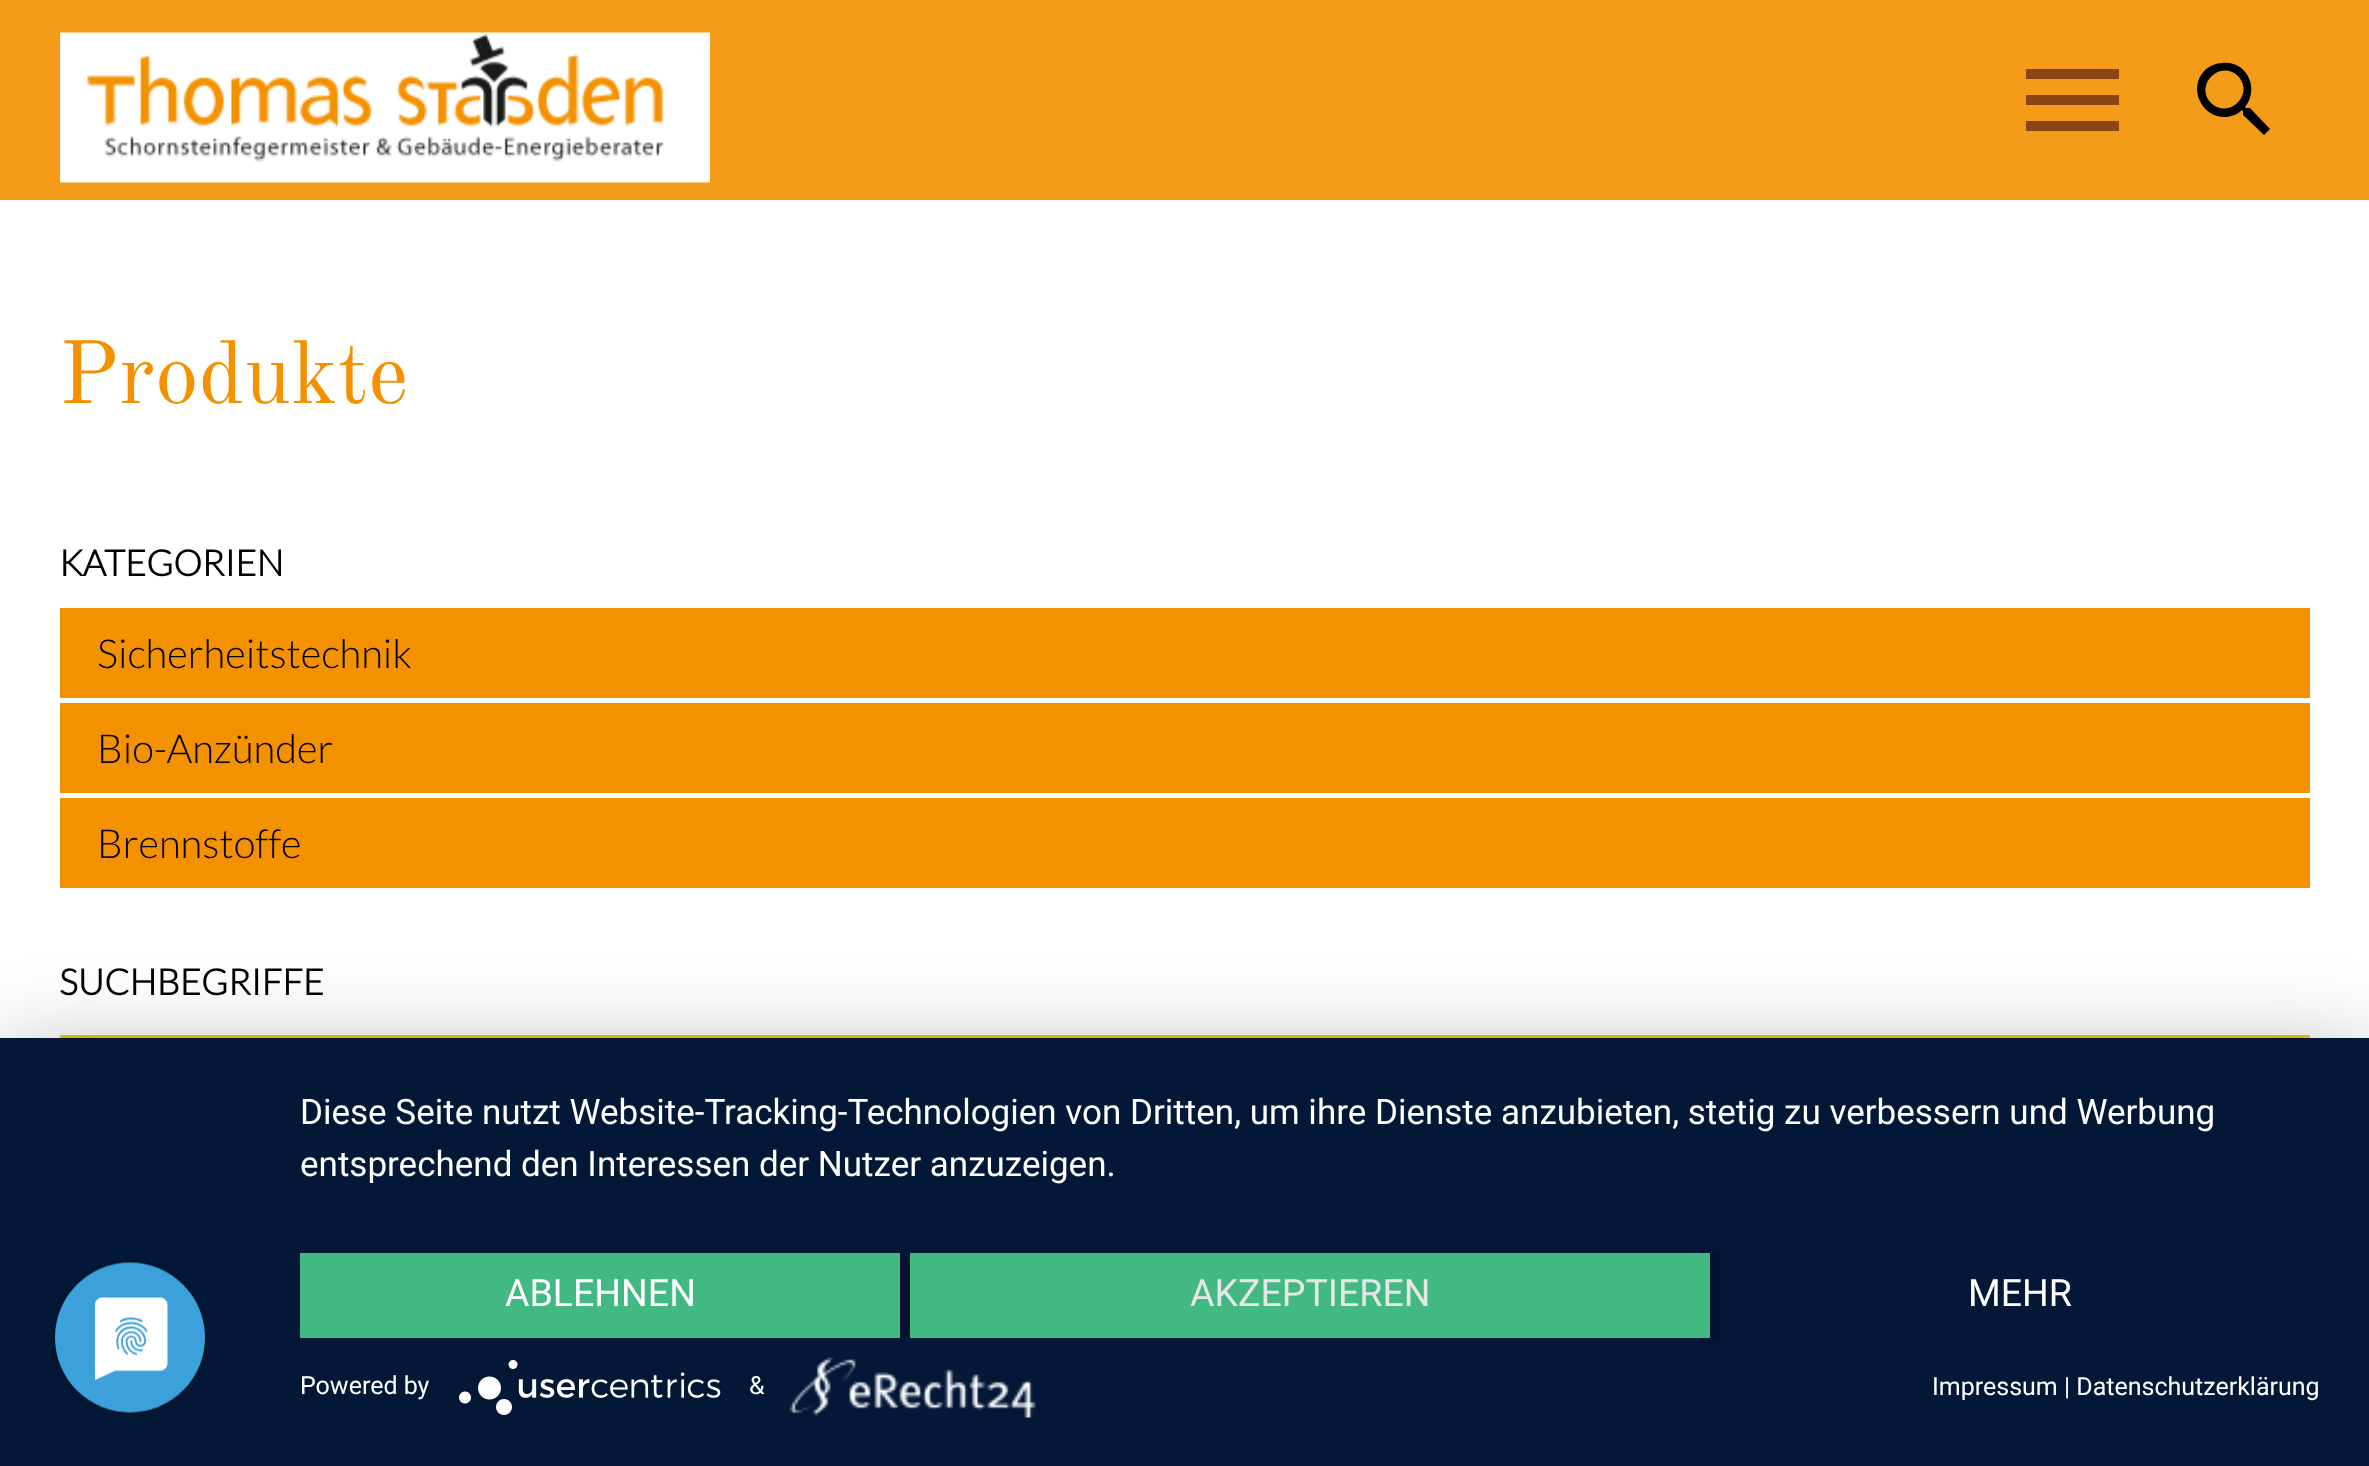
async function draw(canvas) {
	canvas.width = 2369;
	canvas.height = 1466;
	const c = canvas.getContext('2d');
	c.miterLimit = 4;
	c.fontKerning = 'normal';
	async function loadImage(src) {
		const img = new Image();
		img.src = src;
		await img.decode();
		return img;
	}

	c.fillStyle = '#fff';
	c.fillRect(0, 0, 2369, 1466);
	c.fillStyle = '#f49c1a';
	c.fillRect(0, 0, 2369, 200);
	c.drawImage(await loadImage('img1.png'), 60, 32, 650, 151);
	c.fillStyle = '#8b4513';
	c.beginPath();
	c.moveTo(2026, 69);
	c.lineTo(2119, 69);
	c.lineTo(2119, 79);
	c.lineTo(2026, 79);
	c.closePath();
	c.moveTo(2026, 105);
	c.lineTo(2026, 95);
	c.lineTo(2119, 95);
	c.lineTo(2119, 105);
	c.closePath();
	c.moveTo(2026, 131);
	c.lineTo(2026, 121);
	c.lineTo(2119, 121);
	c.lineTo(2119, 131);
	c.closePath();
	c.fill();
	c.fillStyle = '#000';
	c.beginPath();
	c.moveTo(2211, 103);
	c.bezierCurveTo(2229, 120, 2255, 94, 2238, 76);
	c.bezierCurveTo(2220, 59, 2194, 85, 2211, 103);
	c.closePath();
	c.moveTo(2250, 108);
	c.lineTo(2270, 129);
	c.lineTo(2264, 135);
	c.lineTo(2243, 115);
	c.lineTo(2243, 111);
	c.lineTo(2242, 110);
	c.bezierCurveTo(2238, 114, 2233, 116, 2227, 117);
	c.bezierCurveTo(2202, 119, 2187, 88, 2205, 70);
	c.bezierCurveTo(2210, 66, 2216, 63, 2222, 63);
	c.bezierCurveTo(2247, 60, 2260, 89, 2245, 107);
	c.lineTo(2246, 108);
	c.closePath();
	c.fill();
	c.font = '88px Old Standard TT';
	c.fillStyle = '#f39100';
	c.fillText('Produkte', 59, 403);
	c.font = 'bold 36px Lato';
	c.fillStyle = '#000';
	c.fillText('KATEGORIEN', 59, 576);
	c.fillStyle = '#f39100';
	c.fillRect(60, 608, 2250, 90);
	c.font = '300 40px Lato';
	c.fillStyle = '#000';
	c.fillText('Sicherheitstechnik', 97, 668);
	c.fillStyle = '#f39100';
	c.fillRect(60, 703, 2250, 90);
	c.fillStyle = '#000';
	c.fillText('Bio-Anzünder', 97, 763);
	c.fillStyle = '#f39100';
	c.fillRect(60, 798, 2250, 90);
	c.fillStyle = '#000';
	c.fillText('Brennstoffe', 97, 858);
	c.font = 'bold 36px Lato';
	c.fillText('SUCHBEGRIFFE', 59, 995);
	c.strokeStyle = '#f1cd09';
	c.lineWidth = 5;
	c.strokeRect(62.5, 1037.5, 2245, 95);
	c.fillStyle = '#0000004d';
	c.filter = 'blur(45px)';
	c.beginPath();
	c.rect(0, 1053, 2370, 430);
	c.fill();
	c.filter = 'none';
	c.fillStyle = '#021836';
	c.fillRect(0, 1038, 2369, 428);
	c.drawImage(await loadImage('img2.png'), 52, 1260, 156, 155);
	c.font = '35px Roboto';
	c.fillStyle = '#fff';
	c.fillText('Diese Seite nutzt Website-Tracking-Technologien von Dritten, um ihre Dienste anzubieten, stetig zu verbessern und Werbung', 300, 1124);
	c.fillText('entsprechend den Interessen der Nutzer anzuzeigen.', 300, 1176);
	c.save();
	c.beginPath();
	c.rect(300, 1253, 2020, 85);
	c.clip();
	c.fillStyle = '#00000066';
	c.filter = 'blur(5px)';
	c.beginPath();
	c.rect(300, 1255, 600, 85);
	c.fill();
	c.filter = 'none';
	c.restore();
	c.fillStyle = '#42b983';
	c.fillRect(300, 1253, 600, 85);
	c.font = '37.5px Roboto';
	c.fillStyle = '#fff';
	c.fillText('ABLEHNEN', 505, 1306);
	c.save();
	c.beginPath();
	c.rect(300, 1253, 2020, 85);
	c.clip();
	c.fillStyle = '#00000066';
	c.filter = 'blur(5px)';
	c.beginPath();
	c.rect(910, 1255, 800, 85);
	c.fill();
	c.filter = 'none';
	c.restore();
	c.fillStyle = '#42b983';
	c.fillRect(910, 1253, 800, 85);
	c.fillStyle = '#e6e6e6';
	c.fillText('AKZEPTIEREN', 1190, 1306);
	c.save();
	c.beginPath();
	c.rect(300, 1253, 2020, 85);
	c.clip();
	c.fillStyle = '#00000066';
	c.filter = 'blur(5px)';
	c.beginPath();
	c.rect(1720, 1255, 600, 85);
	c.fill();
	c.filter = 'none';
	c.restore();
	c.fillStyle = '#021836';
	c.fillRect(1720, 1253, 600, 85);
	c.fillStyle = '#fff';
	c.fillText('MEHR', 1968, 1306);
	c.font = '25px Roboto';
	c.fillText('Powered by', 300, 1394);
	c.drawImage(await loadImage('img3.png'), 459, 1360, 262, 55);
	c.fillText('&', 749, 1394);
	c.drawImage(await loadImage('img4.png'), 790, 1357, 246, 61);
	c.fillText('Impressum | Datenschutzerklärung', 1932, 1395);
}

draw(document.querySelector('canvas'));
